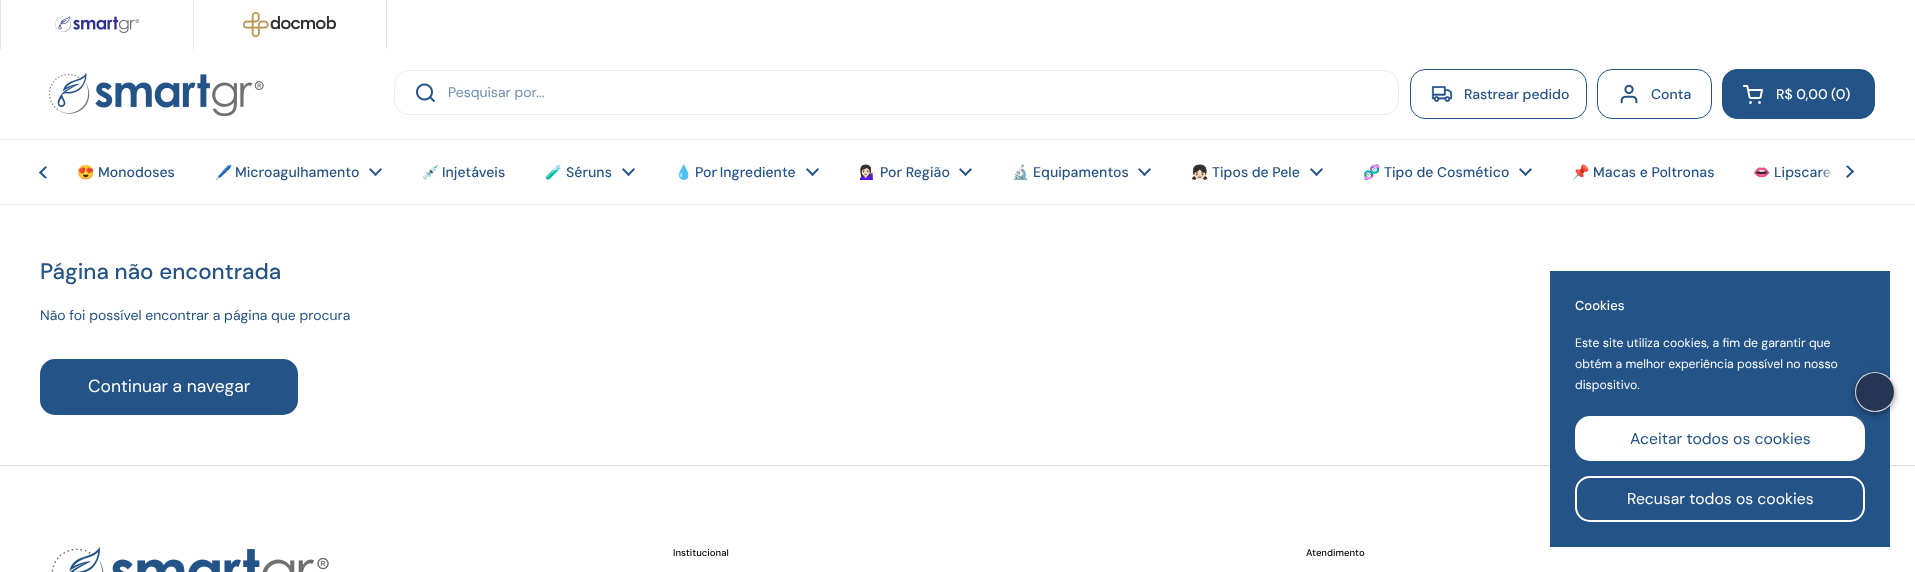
async function draw(canvas) {
	canvas.width = 1915;
	canvas.height = 572;
	const c = canvas.getContext('2d');
	c.miterLimit = 4;
	c.fontKerning = 'normal';
	async function loadImage(src) {
		const img = new Image();
		img.src = src;
		await img.decode();
		return img;
	}
	let gradient;

	c.fillStyle = '#fff';
	c.fillRect(0, 0, 1915, 572);
	c.fillStyle = '#e2e2e2';
	c.fillRect(0, 0, 1, 49);
	c.drawImage(await loadImage('img1.png'), 55, 16, 84, 17);
	c.fillRect(386, 0, 1, 49);
	c.fillRect(193, 0, 1, 49);
	c.drawImage(await loadImage('img2.png'), 243, 12, 93, 25);
	c.fillStyle = '#e9eef3';
	c.fillRect(0, 139, 1915, 1);
	c.drawImage(await loadImage('img3.png'), 48, 72, 216, 44);
	c.beginPath();
	c.roundRect(394.5, 70.5, 1004, 44, 14.5);
	c.strokeStyle = '#e9eef3';
	c.stroke();
	c.drawImage(await loadImage('img4.png'), 416, 83, 19, 19);
	c.font = '14px DM Sans';
	c.fillStyle = '#6e8db0';
	c.fillText('Pesquisar por...', 448, 97);
	c.beginPath();
	c.roundRect(1410.5, 69.5, 176, 49, 14.5);
	c.strokeStyle = '#245388';
	c.stroke();
	c.drawImage(await loadImage('img5.png'), 1431, 86, 22, 16);
	c.font = '500 14px "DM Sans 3"';
	c.fillStyle = '#245388';
	c.fillText('Rastrear pedido', 1464, 99);
	c.beginPath();
	c.roundRect(1597.5, 69.5, 114, 49, 14.5);
	c.stroke();
	c.drawImage(await loadImage('img6.png'), 1620, 84, 18, 20);
	c.fillText('Conta', 1651, 99);
	c.beginPath();
	c.roundRect(1722.5, 69.5, 152, 49, 14.5);
	c.fill();
	c.stroke();
	c.drawImage(await loadImage('img7.png'), 1743, 85, 20, 19);
	c.fillStyle = '#fff';
	for (const [text, x, y] of [
		['R$ 0,00', 1776, 99],
		['(0', 1831, 99],
		[')', 1845, 99],
	]) {
		c.fillText(text, x, y);
	}
	c.fillStyle = '#e9eef3';
	c.fillRect(0, 204, 1915, 1);
	c.drawImage(await loadImage('img8.png'), 39, 166, 8, 13);
	c.font = '14px Noto Color Emoji';
	c.fillStyle = '#245388';
	c.fillText('😍', 77, 177);
	c.font = '500 14px "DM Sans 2"';
	c.fillText('Monodoses', 98, 177);
	c.font = '14px Noto Color Emoji';
	c.fillText('🖊️', 215, 177);
	c.font = '500 14px "DM Sans 2"';
	c.fillText('Microagulhamento', 235, 177);
	c.drawImage(await loadImage('img9.png'), 369, 168, 13, 8);
	c.font = '14px Noto Color Emoji';
	c.fillText('💉', 422, 177);
	c.font = '500 14px "DM Sans 2"';
	c.fillText('Injetáveis', 442, 177);
	c.font = '14px Noto Color Emoji';
	c.fillText('🧪', 545, 177);
	c.font = '500 14px "DM Sans 2"';
	c.fillText('Séruns', 566, 177);
	c.drawImage(await loadImage('img9.png'), 622, 168, 13, 8);
	c.font = '14px Noto Color Emoji';
	c.fillText('💧', 675, 177);
	c.wordSpacing = '-1px';
	c.font = '500 14px "DM Sans 2"';
	c.fillText('Por Ingrediente', 695, 177);
	c.drawImage(await loadImage('img9.png'), 806, 168, 13, 8);
	c.wordSpacing = '0px';
	c.font = '14px Noto Color Emoji';
	c.fillText('💁🏻‍♀️', 859, 177);
	c.font = '500 14px "DM Sans 2"';
	c.fillText('Por Região', 880, 177);
	c.drawImage(await loadImage('img9.png'), 959, 168, 13, 8);
	c.font = '14px Noto Color Emoji';
	c.fillText('🔬', 1012, 177);
	c.font = '500 14px "DM Sans 2"';
	c.fillText('Equipamentos', 1033, 177);
	c.drawImage(await loadImage('img9.png'), 1138, 168, 13, 8);
	c.font = '14px Noto Color Emoji';
	c.fillText('👧🏻', 1191, 177);
	c.font = '500 14px "DM Sans 2"';
	c.fillText('Tipos de Pele', 1212, 177);
	c.drawImage(await loadImage('img9.png'), 1310, 168, 13, 8);
	c.font = '14px Noto Color Emoji';
	c.fillText('🧬', 1363, 177);
	c.font = '500 14px "DM Sans 2"';
	c.fillText('Tipo de Cosmético', 1384, 177);
	c.drawImage(await loadImage('img9.png'), 1519, 168, 13, 8);
	c.font = '14px Noto Color Emoji';
	c.fillText('📌', 1572, 177);
	c.font = '500 14px "DM Sans 2"';
	c.fillText('Macas e Poltronas', 1593, 177);
	c.font = '14px Noto Color Emoji';
	c.fillText('👄', 1753, 177);
	c.font = '500 14px "DM Sans 2"';
	c.fillText('Lipscare', 1774, 177);
	gradient = c.createLinearGradient(1846, 172, 1821, 172);
	gradient.addColorStop(0.5, '#fff');
	gradient.addColorStop(1, '#ffffff00');
	c.fillStyle = gradient;
	c.fillRect(1821, 169, 9, 9);
	c.drawImage(await loadImage('img10.png'), 1846, 165, 8, 13);
	c.font = '500 22.4px DM Sans';
	c.fillStyle = '#245388';
	c.fillText('Página não encontrada', 40, 279);
	c.font = '14px DM Sans';
	c.fillText('Não foi possível encontrar a página que procura', 40, 320);
	c.beginPath();
	c.roundRect(41, 360, 256, 54, 14);
	c.fill();
	c.lineWidth = 2;
	c.stroke();
	c.font = '17.5px "DM Sans 2"';
	c.fillStyle = '#fff';
	c.fillText('Continuar a navegar', 88, 392);
	c.fillStyle = '#d9d9d9';
	c.fillRect(0, 465, 1915, 1);
	c.fillStyle = '#245388';
	c.fillRect(1550, 271, 340, 276);
	c.font = '500 13px "DM Sans 2"';
	c.fillStyle = '#fff';
	c.fillText('Cookies', 1575, 310);
	c.font = '12.25px "DM Sans 3"';
	for (const [text, x, y] of [
		['Este site utiliza cookies, a fim de garantir que', 1575, 347],
		['obtém a melhor experiência possível no nosso', 1575, 368],
		['dispositivo.', 1575, 389],
	]) {
		c.fillText(text, x, y);
	}
	c.beginPath();
	c.roundRect(1576, 417, 288, 43, 14);
	c.fill();
	c.strokeStyle = '#fff';
	c.stroke();
	c.font = '15.75px "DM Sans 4"';
	c.fillStyle = '#245388';
	c.fillText('Aceitar todos os cookies', 1630, 444);
	c.beginPath();
	c.roundRect(1576, 477, 288, 44, 14);
	c.stroke();
	c.fillStyle = '#fff';
	c.fillText('Recusar todos os cookies', 1627, 504);
	c.fillStyle = '#0000001f';
	c.filter = 'blur(5px)';
	c.beginPath();
	c.roundRect(1855, 373, 40, 40, 20);
	c.fill();
	c.filter = 'none';
	c.fillStyle = '#00000024';
	c.filter = 'blur(2.5px)';
	c.beginPath();
	c.roundRect(1855, 376, 40, 40, 20);
	c.fill();
	c.filter = 'none';
	c.fillStyle = '#00000033';
	c.filter = 'blur(2px)';
	c.beginPath();
	c.roundRect(1856, 375, 38, 38, 19);
	c.fill();
	c.filter = 'none';
	c.fillStyle = '#fff';
	c.beginPath();
	c.arc(1875, 392, 20, 0, 2 * Math.PI);
	c.fill();
	c.beginPath();
	c.arc(1875, 392, 19.5, 0, 2 * Math.PI);
	c.strokeStyle = '#00000033';
	c.lineWidth = 1;
	c.stroke();
	c.fillStyle = '#263554';
	c.beginPath();
	c.arc(1875, 392, 19, 0, 2 * Math.PI);
	c.fill();
	c.drawImage(await loadImage('img11.png'), 51, 547, 278, 25);
	c.font = '500 9.5px "DM Sans 2"';
	c.fillStyle = '#000';
	c.fillText('Institucional', 673, 556);
	c.fillText('Atendimento', 1306, 556);
}

draw(document.querySelector('canvas'));
